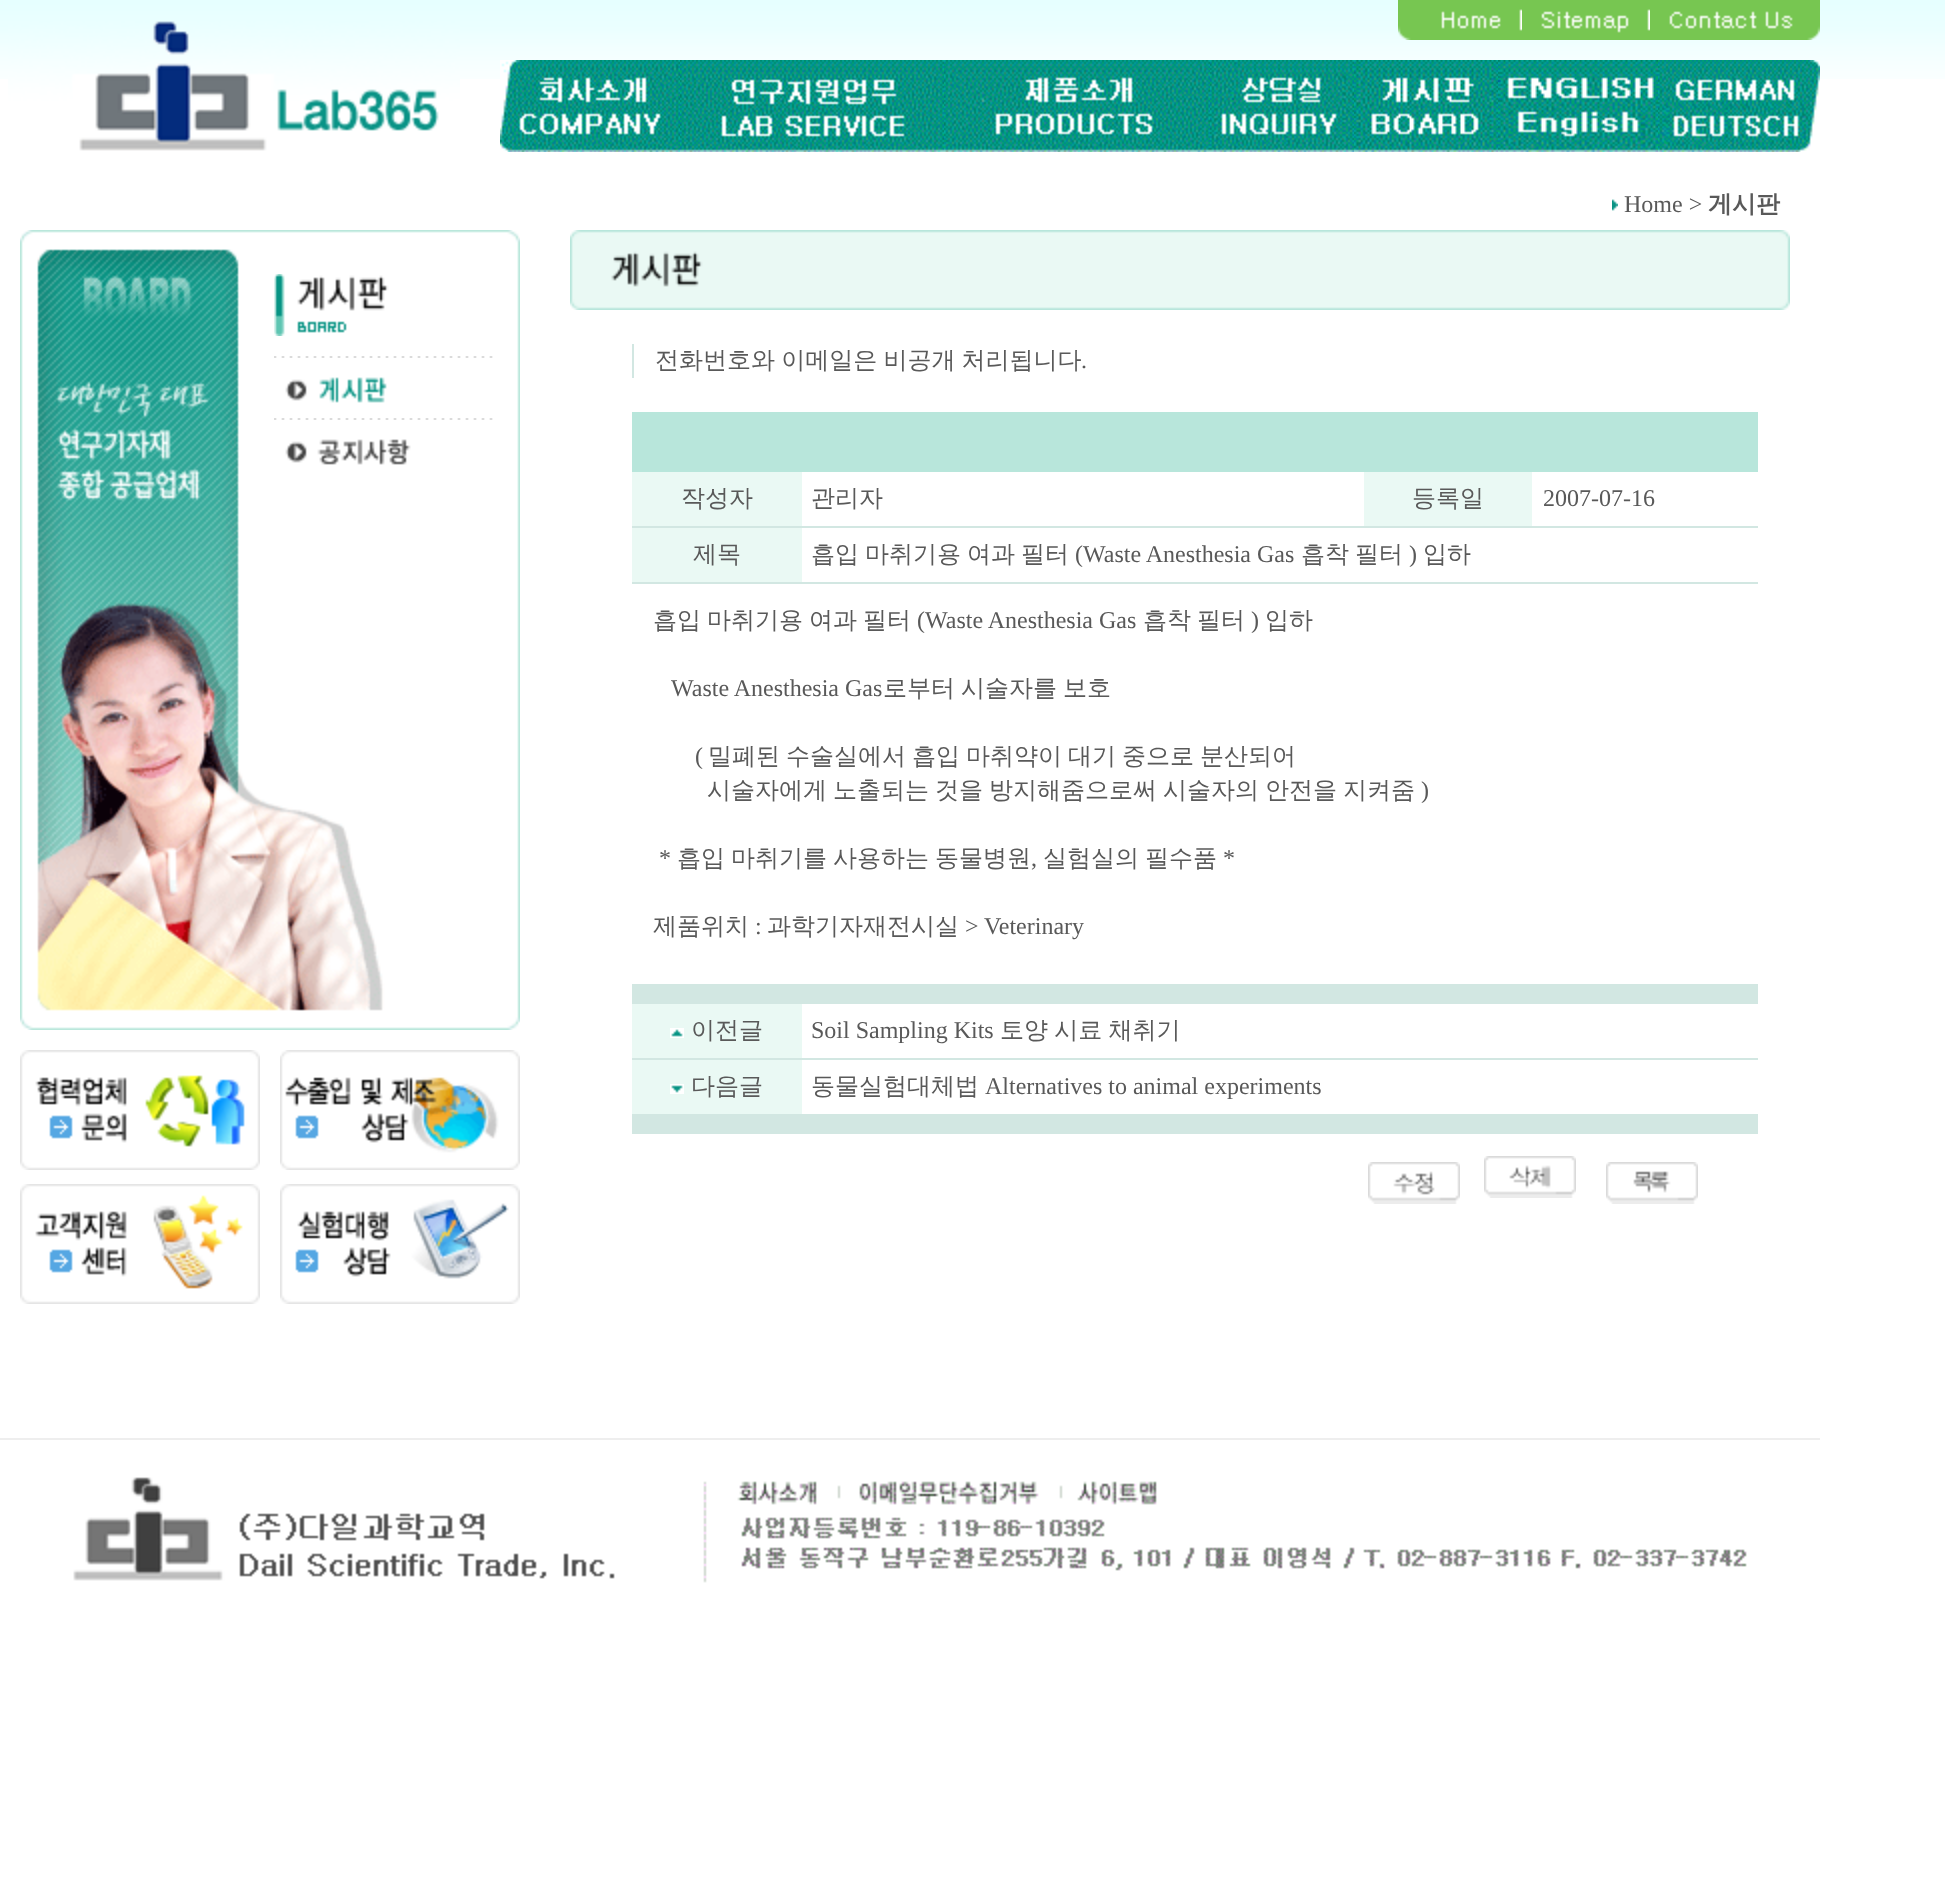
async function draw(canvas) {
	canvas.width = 1945;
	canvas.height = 1902;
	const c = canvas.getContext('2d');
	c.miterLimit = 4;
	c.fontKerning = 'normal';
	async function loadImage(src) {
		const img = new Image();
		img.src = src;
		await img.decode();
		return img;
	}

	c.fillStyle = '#fff';
	c.fillRect(0, 0, 1945, 1902);
	c.drawImage(await loadImage('img1.png'), 0, 0, 1945, 79);
	c.drawImage(await loadImage('img2.png'), 8, 21, 452, 130);
	c.drawImage(await loadImage('img3.png'), 1398, 0, 124, 40);
	c.drawImage(await loadImage('img4.png'), 1522, 0, 128, 40);
	c.drawImage(await loadImage('img5.png'), 1650, 0, 170, 40);
	c.drawImage(await loadImage('img6.png'), 500, 60, 180, 92);
	c.drawImage(await loadImage('img7.png'), 680, 60, 264, 92);
	c.drawImage(await loadImage('img8.png'), 944, 60, 266, 92);
	c.drawImage(await loadImage('img9.png'), 1210, 60, 144, 92);
	c.drawImage(await loadImage('img10.png'), 1354, 60, 144, 92);
	c.drawImage(await loadImage('img11.png'), 1498, 60, 160, 92);
	c.drawImage(await loadImage('img12.png'), 1658, 60, 162, 92);
	c.drawImage(await loadImage('img13.png'), 1612, 199, 6, 12);
	c.font = '24px Liberation Serif';
	c.fillStyle = '#595959';
	c.fillText('Home >', 1624, 212);
	c.font = 'bold 24px WenQuanYi Zen Hei';
	c.fillText('게시판', 1708, 212);
	c.drawImage(await loadImage('img14.png'), 20, 230, 500, 800);
	c.drawImage(await loadImage('img15.png'), 274, 274, 115, 62);
	c.drawImage(await loadImage('img16.png'), 274, 356, 219, 2);
	c.drawImage(await loadImage('img17.png'), 285, 377, 102, 26);
	c.drawImage(await loadImage('img16.png'), 274, 418, 219, 2);
	c.drawImage(await loadImage('img18.png'), 285, 439, 126, 26);
	c.drawImage(await loadImage('img19.png'), 20, 1050, 240, 120);
	c.drawImage(await loadImage('img20.png'), 280, 1050, 240, 120);
	c.drawImage(await loadImage('img21.png'), 20, 1184, 240, 120);
	c.drawImage(await loadImage('img22.png'), 280, 1184, 240, 120);
	c.drawImage(await loadImage('img23.png'), 570, 230, 1220, 80);
	c.fillStyle = '#d2e7e2';
	c.fillRect(632, 344, 2, 34);
	c.wordSpacing = '-1px';
	c.font = '500 24px WenQuanYi Zen Hei';
	c.fillStyle = '#595959';
	c.fillText('전화번호와 이메일은 비공개 처리됩니다', 655, 368);
	c.wordSpacing = '0px';
	c.font = '24px Liberation Serif';
	c.fillText('.', 1081, 368);
	for (const [x, y, w, h, color] of [
		[632, 412, 1126, 60, '#b8e6db'],
		[632, 472, 900, 54, '#eaf9f4'],
		[632, 526, 1126, 2, '#d2e7e2'],
	]) {
		c.fillStyle = color;
		c.fillRect(x, y, w, h);
	}
	c.font = '500 24px WenQuanYi Zen Hei';
	c.fillStyle = '#595959';
	c.fillText('작성자', 681, 506);
	c.fillStyle = '#fff';
	c.fillRect(802, 472, 562, 54);
	c.fillStyle = '#595959';
	c.fillText('관리자', 811, 506);
	c.fillText('등록일', 1412, 506);
	c.font = '24px Liberation Serif';
	c.fillText('2007-07-16', 1543, 506);
	c.fillStyle = '#eaf9f4';
	c.fillRect(632, 528, 170, 54);
	c.fillStyle = '#d2e7e2';
	c.fillRect(632, 582, 1126, 2);
	c.font = '500 24px WenQuanYi Zen Hei';
	c.fillStyle = '#595959';
	for (const [text, x, y] of [
		['제목', 693, 562],
		['흡입', 811, 562],
		['마취기용', 865, 562],
		['여과', 967, 562],
		['필터', 1021, 562],
	]) {
		c.fillText(text, x, y);
	}
	c.font = '24px Liberation Serif';
	c.fillText('(Waste Anesthesia Gas', 1075, 562);
	c.font = '500 24px WenQuanYi Zen Hei';
	c.fillText('흡착', 1301, 562);
	c.fillText('필터', 1355, 562);
	c.font = '24px Liberation Serif';
	c.fillText(')', 1409, 562);
	c.font = '500 24px WenQuanYi Zen Hei';
	for (const [text, x, y] of [
		['입하', 1423, 562],
		['흡입', 653, 628],
		['마취기용', 707, 628],
		['여과', 809, 628],
		['필터', 863, 628],
	]) {
		c.fillText(text, x, y);
	}
	c.font = '24px Liberation Serif';
	c.fillText('(Waste Anesthesia Gas', 917, 628);
	c.font = '500 24px WenQuanYi Zen Hei';
	c.fillText('흡착', 1143, 628);
	c.fillText('필터', 1197, 628);
	c.font = '24px Liberation Serif';
	c.fillText(')', 1251, 628);
	c.font = '500 24px WenQuanYi Zen Hei';
	c.fillText('입하', 1265, 628);
	c.font = '24px Liberation Serif';
	c.fillText('Waste Anesthesia Gas', 671, 696);
	c.font = '500 24px WenQuanYi Zen Hei';
	for (const [text, x, y] of [
		['로부터', 883, 696],
		['시술자를', 961, 696],
		['보호', 1063, 696],
	]) {
		c.fillText(text, x, y);
	}
	c.font = '24px Liberation Serif';
	c.fillText('(', 695, 764);
	c.font = '500 24px WenQuanYi Zen Hei';
	for (const [text, x, y] of [
		['밀폐된', 708, 764],
		['수술실에서', 786, 764],
		['흡입', 912, 764],
		['마취약이', 966, 764],
		['대기', 1068, 764],
		['중으로', 1122, 764],
		['분산되어', 1200, 764],
		['시술자에게', 707, 798],
		['노출되는', 833, 798],
		['것을', 935, 798],
		['방지해줌으로써', 989, 798],
		['시술자의', 1163, 798],
		['안전을', 1265, 798],
		['지켜줌', 1343, 798],
	]) {
		c.fillText(text, x, y);
	}
	c.font = '24px Liberation Serif';
	c.fillText(')', 1421, 798);
	c.fillText('*', 659, 866);
	c.font = '500 24px WenQuanYi Zen Hei';
	for (const [text, x, y] of [
		['흡입', 677, 866],
		['마취기를', 731, 866],
		['사용하는', 833, 866],
		['동물병원', 935, 866],
		['실험실의', 1043, 866],
		['필수품', 1145, 866],
	]) {
		c.fillText(text, x, y);
	}
	c.font = '24px Liberation Serif';
	c.fillText('*', 1223, 866);
	c.fillText(',', 1031, 866);
	c.font = '500 24px WenQuanYi Zen Hei';
	c.fillText('제품위치', 653, 934);
	c.font = '24px Liberation Serif';
	c.fillText(':', 755, 934);
	c.font = '500 24px WenQuanYi Zen Hei';
	c.fillText('과학기자재전시실', 767, 934);
	c.font = '24px Liberation Serif';
	c.fillText('> Veterinary', 965, 934);
	for (const [x, y, w, h, color] of [
		[632, 984, 1126, 20, '#d2e7e2'],
		[632, 1004, 170, 54, '#eaf9f4'],
		[632, 1058, 1126, 2, '#d2e7e2'],
	]) {
		c.fillStyle = color;
		c.fillRect(x, y, w, h);
	}
	c.drawImage(await loadImage('img24.png'), 670, 1028, 14, 10);
	c.font = '500 24px WenQuanYi Zen Hei';
	c.fillStyle = '#595959';
	c.fillText('이전글', 691, 1038);
	c.font = '24px Liberation Serif';
	c.fillText('Soil Sampling Kits', 811, 1038);
	c.wordSpacing = '-1px';
	c.font = '500 24px WenQuanYi Zen Hei';
	c.fillText('토양 시료 채취기', 1000, 1038);
	c.fillStyle = '#eaf9f4';
	c.fillRect(632, 1060, 170, 54);
	c.drawImage(await loadImage('img25.png'), 670, 1084, 14, 10);
	c.wordSpacing = '0px';
	c.fillStyle = '#595959';
	c.fillText('다음글', 691, 1094);
	c.fillText('동물실험대체법', 811, 1094);
	c.font = '24px Liberation Serif';
	c.fillText('Alternatives to animal experiments', 985, 1094);
	c.fillStyle = '#d2e7e2';
	c.fillRect(632, 1114, 1126, 20);
	c.drawImage(await loadImage('img26.png'), 1368, 1162, 92, 42);
	c.drawImage(await loadImage('img27.png'), 1484, 1156, 92, 42);
	c.drawImage(await loadImage('img28.png'), 1606, 1162, 92, 42);
	c.fillStyle = '#eee';
	c.fillRect(0, 1438, 1820, 2);
	c.drawImage(await loadImage('img29.png'), 73, 1477, 542, 104);
	c.drawImage(await loadImage('img30.png'), 703, 1481, 1044, 102);
}

draw(document.querySelector('canvas'));
